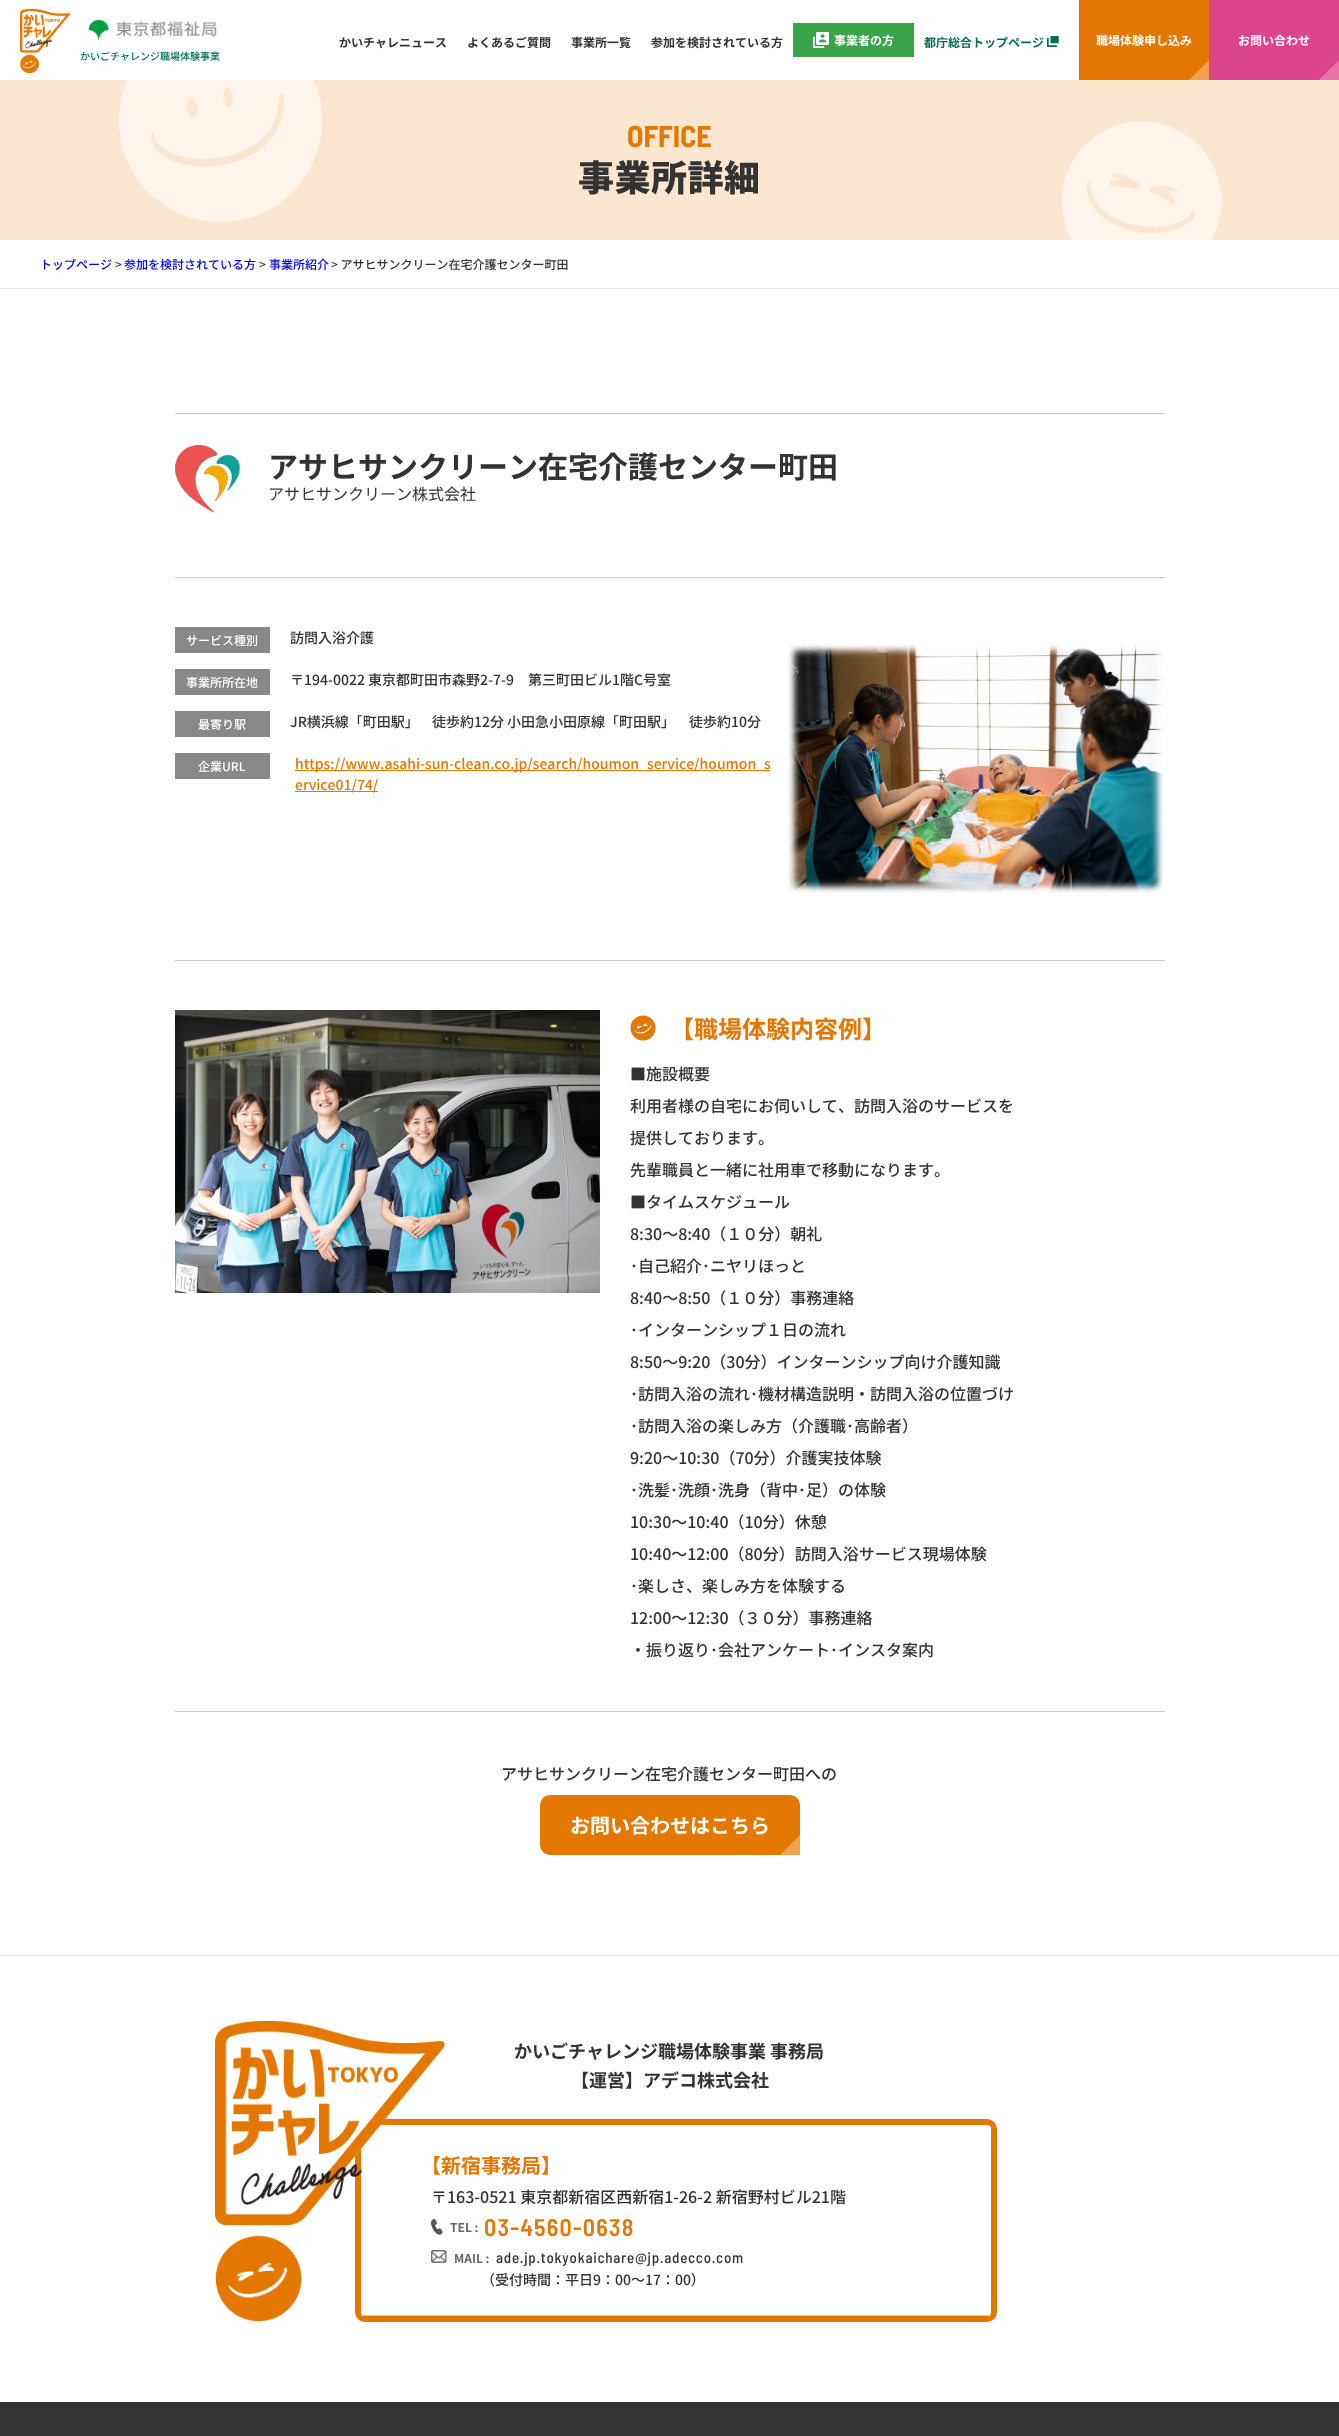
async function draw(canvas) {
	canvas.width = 1339;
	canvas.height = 2436;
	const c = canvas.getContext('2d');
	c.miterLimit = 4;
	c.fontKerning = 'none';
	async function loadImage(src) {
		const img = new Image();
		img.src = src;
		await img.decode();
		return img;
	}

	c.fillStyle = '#fff';
	c.fillRect(0, 0, 1339, 2436);
	c.font = 'bold 12px Noto Sans JP';
	c.fillStyle = '#333';
	for (const [text, x, y] of [
		['かいチャレニュース', 339, 47],
		['よくあるご質問', 467, 47],
		['事業所一覧', 571, 47],
		['参加を検討されている方', 651, 47],
	]) {
		c.fillText(text, x, y);
	}
	c.fillStyle = '#39a44a';
	c.fillRect(793, 23, 121, 34);
	c.drawImage(await loadImage('img1.png'), 813, 32, 16, 16);
	c.fillStyle = '#fff';
	c.fillText('事業者の方', 834, 45);
	c.fillStyle = '#006f50';
	c.fillText('都庁総合トップページ', 924, 47);
	c.drawImage(await loadImage('img2.png'), 1047, 36, 12, 11);
	c.fillStyle = '#e37700';
	c.fillRect(1079, 0, 130, 80);
	c.fillStyle = '#fff';
	c.fillText('職場体験申し込み', 1096, 45);
	c.save();
	c.beginPath();
	c.rect(1079, 0, 130, 80);
	c.clip();
	c.fillStyle = '#f2a24a';
	c.beginPath();
	c.moveTo(1209, 60);
	c.lineTo(1209, 120);
	c.lineTo(1189, 120);
	c.lineTo(1189, 80);
	c.closePath();
	c.fill();
	c.restore();
	c.fillStyle = '#dc448b';
	c.fillRect(1209, 0, 130, 80);
	c.fillStyle = '#fff';
	c.fillText('お問い合わせ', 1238, 45);
	c.save();
	c.beginPath();
	c.rect(1209, 0, 130, 80);
	c.clip();
	c.fillStyle = '#e972aa';
	c.beginPath();
	c.moveTo(1339, 60);
	c.lineTo(1339, 120);
	c.lineTo(1319, 120);
	c.lineTo(1319, 80);
	c.closePath();
	c.fill();
	c.restore();
	c.drawImage(await loadImage('img3.png'), 20, 8, 50, 65);
	c.drawImage(await loadImage('img4.png'), 88, 19, 129, 22);
	c.font = '500 10px Noto Sans JP';
	c.fillStyle = '#006f50';
	c.fillText('かいごチャレンジ職場体験事業', 80, 60);
	c.fillStyle = '#fbe6d0';
	c.fillRect(0, 80, 1339, 160);
	c.drawImage(await loadImage('img5.png'), 119, 80, 1103, 160);
	c.font = 'bold 30px Barlow Semi Condensed';
	c.fillStyle = '#e37700';
	c.fillText('OFFICE', 627, 147);
	c.letterSpacing = '0.5px';
	c.font = '900 36px Noto Sans JP';
	c.fillStyle = '#333';
	c.fillText('事業所詳細', 578, 191);
	c.fillStyle = '#e9e9e9';
	c.fillRect(0, 288, 1339, 1);
	c.letterSpacing = '0px';
	c.font = '500 12px Noto Sans JP';
	c.fillStyle = '#00e';
	c.fillText('トップページ', 40, 269);
	c.fillStyle = '#333';
	c.fillText('>', 115, 269);
	c.fillStyle = '#00e';
	c.fillText('参加を検討されている方', 124, 269);
	c.fillStyle = '#333';
	c.fillText('>', 259, 269);
	c.fillStyle = '#00e';
	c.fillText('事業所紹介', 269, 269);
	c.fillStyle = '#333';
	c.fillText('> アサヒサンクリーン在宅介護センター町田', 331, 269);
	c.fillStyle = '#ccc';
	c.fillRect(175, 413, 990, 1);
	c.drawImage(await loadImage('img6.png'), 175, 445, 66, 68);
	c.font = 'bold 30px Noto Sans JP';
	c.fillStyle = '#333';
	c.fillText('アサヒサンクリーン在宅介護センター町田', 268, 478);
	c.font = '16px Noto Sans JP';
	c.fillText('アサヒサンクリーン株式会社', 268, 500);
	c.fillStyle = '#ccc';
	c.fillRect(175, 577, 990, 1);
	c.fillStyle = '#888';
	c.fillRect(175, 627, 95, 26);
	c.font = '500 12px Noto Sans JP';
	c.fillStyle = '#fff';
	c.fillText('サービス種別', 186, 645);
	c.font = '500 14px Noto Sans JP';
	c.fillStyle = '#333';
	c.fillText('訪問入浴介護', 290, 643);
	c.fillStyle = '#888';
	c.fillRect(175, 669, 95, 26);
	c.font = '500 12px Noto Sans JP';
	c.fillStyle = '#fff';
	c.fillText('事業所所在地', 186, 687);
	c.font = '500 14px Noto Sans JP';
	c.fillStyle = '#333';
	c.fillText('〒194-0022 東京都町田市森野2-7-9　第三町田ビル1階C号室', 290, 685);
	c.fillStyle = '#888';
	c.fillRect(175, 711, 95, 26);
	c.font = '500 12px Noto Sans JP';
	c.fillStyle = '#fff';
	c.fillText('最寄り駅', 198, 729);
	c.font = '500 14px Noto Sans JP';
	c.fillStyle = '#333';
	c.fillText('JR横浜線「町田駅」', 290, 727);
	c.fillText('　徒歩約12分 小田急小田原線「町田駅」', 418, 727);
	c.fillText('　徒歩約10分', 675, 727);
	c.fillStyle = '#888';
	c.fillRect(175, 753, 95, 26);
	c.font = '500 12px Noto Sans JP';
	c.fillStyle = '#fff';
	c.fillText('企業URL', 198, 771);
	c.fillStyle = '#e37700';
	c.fillRect(295, 770, 475, 1);
	c.font = '500 14px Noto Sans JP';
	c.fillText('https://www.asahi-sun-clean.co.jp/search/houmon_service/houmon_s', 295, 769);
	c.fillRect(295, 791, 83, 1);
	c.fillText('ervice01/74/', 295, 790);
	c.drawImage(await loadImage('img7.png'), 787, 643, 377, 250);
	c.fillStyle = '#ccc';
	c.fillRect(175, 960, 990, 1);
	c.drawImage(await loadImage('img8.png'), 175, 1010, 425, 283);
	c.drawImage(await loadImage('img9.png'), 630, 1015, 26, 26);
	c.font = 'bold 24px Noto Sans JP';
	c.fillStyle = '#e37700';
	c.fillText('【職場体験内容例】', 670, 1038);
	c.font = '500 16px Noto Sans JP';
	c.fillStyle = '#333';
	for (const [text, x, y] of [
		['■施設概要', 630, 1080],
		['利用者様の自宅にお伺いして、訪問入浴のサービスを', 630, 1112],
		['提供しております。', 630, 1144],
		['先輩職員と一緒に社用車で移動になります。', 630, 1176],
		['■タイムスケジュール', 630, 1208],
		['8:30～8:40（１０分）朝礼', 630, 1240],
		['･自己紹介･ニヤリほっと', 630, 1272],
		['8:40～8:50（１０分）事務連絡', 630, 1304],
		['･インターンシップ１日の流れ', 630, 1336],
		['8:50～9:20（30分）インターンシップ向け介護知識', 630, 1368],
		['･訪問入浴の流れ･機材構造説明・訪問入浴の位置づけ', 630, 1400],
		['･訪問入浴の楽しみ方（介護職･高齢者）', 630, 1432],
		['9:20～10:30（70分）介護実技体験', 630, 1464],
		['･洗髪･洗顔･洗身（背中･足）の体験', 630, 1496],
		['10:30～10:40（10分）休憩', 630, 1528],
		['10:40～12:00（80分）訪問入浴サービス現場体験', 630, 1560],
		['･楽しさ、楽しみ方を体験する', 630, 1592],
		['12:00～12:30（３０分）事務連絡', 630, 1624],
		['・振り返り･会社アンケート･インスタ案内', 630, 1656],
	]) {
		c.fillText(text, x, y);
	}
	c.fillStyle = '#ccc';
	c.fillRect(175, 1711, 990, 1);
	c.fillStyle = '#333';
	c.fillText('アサヒサンクリーン在宅介護センター町田への', 501, 1780);
	c.fillStyle = '#e37700';
	c.beginPath();
	c.roundRect(540, 1795, 260, 60, [10, 10, 0, 10]);
	c.fill();
	c.font = 'bold 20px Noto Sans JP';
	c.fillStyle = '#fff';
	c.fillText('お問い合わせはこちら', 570, 1833);
	c.save();
	c.beginPath();
	c.rect(540, 1795, 260, 60);
	c.clip();
	c.fillStyle = '#f2a24a';
	c.beginPath();
	c.moveTo(800, 1835);
	c.lineTo(800, 1895);
	c.lineTo(780, 1895);
	c.lineTo(780, 1855);
	c.closePath();
	c.fill();
	c.restore();
	c.fillStyle = '#e9e9e9';
	c.fillRect(0, 1955, 1339, 1);
	c.beginPath();
	c.roundRect(358, 2122, 636, 197, 7);
	c.strokeStyle = '#e37700';
	c.lineWidth = 6;
	c.stroke();
	c.fillStyle = '#ccc';
	c.fillRect(361, 2315, 630, 1);
	c.fillStyle = '#e37700';
	c.fillText('【新宿事務局】', 421, 2173);
	c.font = '500 16px Noto Sans JP';
	c.fillStyle = '#333';
	c.fillText('〒163-0521 東京都新宿区西新宿1-26-2 新宿野村ビル21階', 431, 2203);
	c.drawImage(await loadImage('img11.png'), 431, 2219, 12, 16);
	c.drawImage(await loadImage('img12.png'), 431, 2250, 16, 13);
	c.drawImage(await loadImage('img10.png'), 215, 2020, 230, 302);
	c.font = 'bold 18px Noto Sans JP';
	c.fillText('かいごチャレンジ職場体験事業 事務局', 514, 2058);
	c.fillText('【運営】アデコ株式会社', 571, 2087);
	c.font = 'bold 12px Noto Sans JP';
	c.fillStyle = '#666';
	c.fillText('TEL :', 450, 2232);
	c.letterSpacing = '1.25px';
	c.font = '600 24px Barlow Semi Condensed';
	c.fillStyle = '#e37700';
	c.fillText('03-4560-0638', 484, 2236);
	c.letterSpacing = '0px';
	c.font = 'bold 12px Noto Sans JP';
	c.fillStyle = '#666';
	c.fillText('MAIL :', 454, 2263);
	c.letterSpacing = '0.75px';
	c.font = '500 15px Barlow Semi Condensed';
	c.fillStyle = '#333';
	c.fillText('ade.jp.tokyokaichare@jp.adecco.com', 496, 2263);
	c.letterSpacing = '0px';
	c.font = '500 14px Noto Sans JP';
	c.fillText('（受付時間：平日9：00～17：00）', 481, 2285);
	c.fillRect(0, 2402, 1339, 34);
}

draw(document.querySelector('canvas'));
